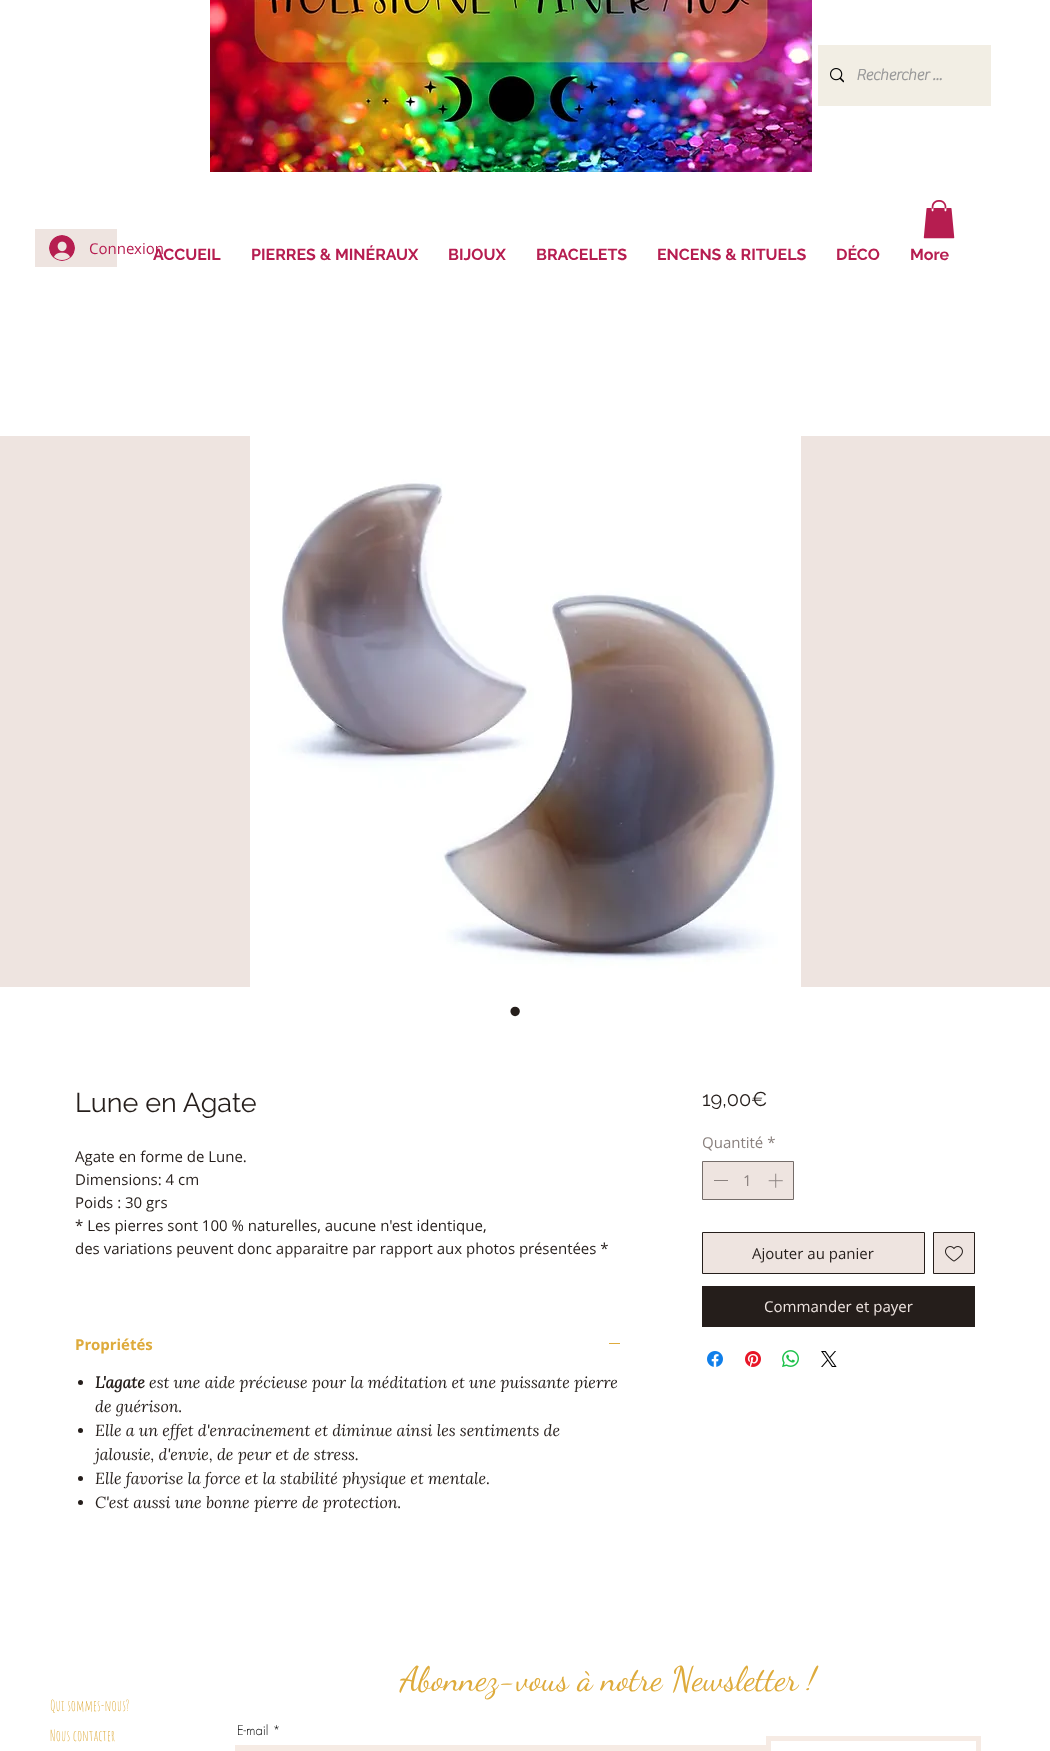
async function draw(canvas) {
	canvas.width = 1050;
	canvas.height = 1751;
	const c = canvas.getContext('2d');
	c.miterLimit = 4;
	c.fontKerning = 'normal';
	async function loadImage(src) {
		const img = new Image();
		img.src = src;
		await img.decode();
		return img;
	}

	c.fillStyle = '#fff';
	c.fillRect(0, 0, 1050, 1751);
	c.drawImage(await loadImage('img1.png'), 210, 0, 602, 172);
	c.fillStyle = '#f2eee4';
	c.fillRect(818, 45, 173, 61);
	c.drawImage(await loadImage('img2.png'), 830, 68, 14, 15);
	c.font = 'bold 16px "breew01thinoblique"';
	c.fillStyle = '#999';
	c.fillText('Rechercher ...', 856, 80);
	c.drawImage(await loadImage('img3.png'), 923, 200, 32, 39);
	c.fillStyle = '#eee4e0';
	c.fillRect(35, 229, 82, 38);
	c.drawImage(await loadImage('img4.png'), 49, 235, 26, 26);
	c.font = '15px Open Sans';
	c.fillStyle = '#b61d50';
	c.fillText('Connexion', 89, 254);
	c.font = 'bold 16px Raleway';
	for (const [text, x, y] of [
		['ACCUEIL', 153, 260],
		['PIERRES & MINÉRAUX', 251, 260],
		['BIJOUX', 448, 260],
		['BRACELETS', 536, 260],
		['ENCENS & RITUELS', 657, 260],
		['DÉCO', 836, 260],
		['More', 910, 260],
	]) {
		c.fillText(text, x, y);
	}
	c.fillStyle = '#eee4e0';
	c.fillRect(0, 436, 1050, 551);
	c.drawImage(await loadImage('img5.png'), 250, 436, 551, 551);
	c.font = '35px Liberation Sans';
	c.fillStyle = '#251e1b';
	c.fillText('•', 509, 1023);
	c.font = '27px Raleway';
	c.fillText('Lune en Agate', 75, 1112);
	c.font = '15px Open Sans';
	for (const [text, x, y] of [
		['Agate en forme de Lune.', 75, 1162],
		['Dimensions: 4 cm', 75, 1185],
		['Poids : 30 grs', 75, 1208],
		['* Les pierres sont 100 % naturelles, aucune n\'est identique,', 75, 1231],
		['des variations peuvent donc apparaitre par rapport aux photos présentées *', 75, 1254],
	]) {
		c.fillText(text, x, y);
	}
	c.font = 'bold 15px Open Sans';
	c.fillStyle = '#deab3c';
	c.fillText('Propriétés', 75, 1350);
	c.fillRect(609, 1343, 11, 1);
	c.fillStyle = '#251e1b';
	c.beginPath();
	c.arc(80.5, 1382.5, 2.5, 0, 2 * Math.PI);
	c.fill();
	c.font = 'italic bold 16px Lora';
	c.fillText('L\'agate', 95, 1388);
	c.font = 'italic 16px Lora';
	c.fillText('est une aide précieuse pour la méditation et une puissante pierre', 149, 1388);
	c.fillText('de guérison.', 95, 1412);
	c.beginPath();
	c.arc(80.5, 1430.5, 2.5, 0, 2 * Math.PI);
	c.fill();
	c.fillText('Elle a un effet d\'enracinement et diminue ainsi les sentiments de', 95, 1436);
	c.fillText('jalousie, d\'envie, de peur et de stress.', 95, 1460);
	c.beginPath();
	c.arc(80.5, 1478.5, 2.5, 0, 2 * Math.PI);
	c.fill();
	c.fillText('Elle favorise la force et la stabilité physique et mentale.', 95, 1484);
	c.beginPath();
	c.arc(80.5, 1502.5, 2.5, 0, 2 * Math.PI);
	c.fill();
	c.fillText('C\'est aussi une bonne pierre de protection.', 95, 1508);
	c.font = '20px Raleway';
	c.fillText('19,00€', 702, 1106);
	c.font = '15px Open Sans';
	c.fillStyle = '#8a817e';
	c.fillText('Quantité *', 702, 1148);
	c.fillStyle = '#eee4e0';
	c.beginPath();
	c.rect(702.5, 1161.5, 91, 38);
	c.fill();
	c.strokeStyle = '#756d6a';
	c.stroke();
	c.fillStyle = '#8a817e';
	c.fillRect(714, 1180, 14, 1);
	c.fillText('1', 743, 1186);
	c.drawImage(await loadImage('img6.png'), 768, 1173, 15, 15);
	c.fillStyle = '#eee4e0';
	c.beginPath();
	c.rect(702.5, 1232.5, 222, 41);
	c.fill();
	c.strokeStyle = '#251e1b';
	c.stroke();
	c.fillStyle = '#251e1b';
	c.fillText('Ajouter au panier', 752, 1259);
	c.fillStyle = '#eee4e0';
	c.beginPath();
	c.rect(933.5, 1232.5, 41, 41);
	c.fill();
	c.stroke();
	c.drawImage(await loadImage('img7.png'), 945, 1246, 18, 16);
	c.fillStyle = '#251e1b';
	c.fillRect(702, 1286, 273, 41);
	c.fillStyle = '#eee4e0';
	c.fillText('Commander et payer', 764, 1312);
	c.drawImage(await loadImage('img8.png'), 707, 1351, 16, 16);
	c.drawImage(await loadImage('img9.png'), 745, 1351, 16, 16);
	c.drawImage(await loadImage('img10.png'), 782, 1350, 17, 17);
	c.drawImage(await loadImage('img11.png'), 821, 1351, 16, 16);
	c.font = '15px Amatic SC';
	c.fillStyle = '#deab3c';
	c.fillText('Qui sommes-nous?', 50, 1711);
	c.font = '34px Dancing Script';
	c.fillText('Abonnez-vous à notre Newsletter !', 400, 1690);
	c.font = '300 13px futura';
	c.fillStyle = '#000';
	c.fillText('E-mail *', 237, 1735);
	c.fillStyle = '#f6ebe4';
	c.fillRect(235, 1745, 531, 6);
	c.strokeStyle = '#f6ebe4';
	c.lineWidth = 5;
	c.strokeRect(768.5, 1738.5, 210, 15);
	c.font = '15px Amatic SC';
	c.fillStyle = '#deab3c';
	c.fillText('Nous contacter', 50, 1741);
}

draw(document.querySelector('canvas'));
